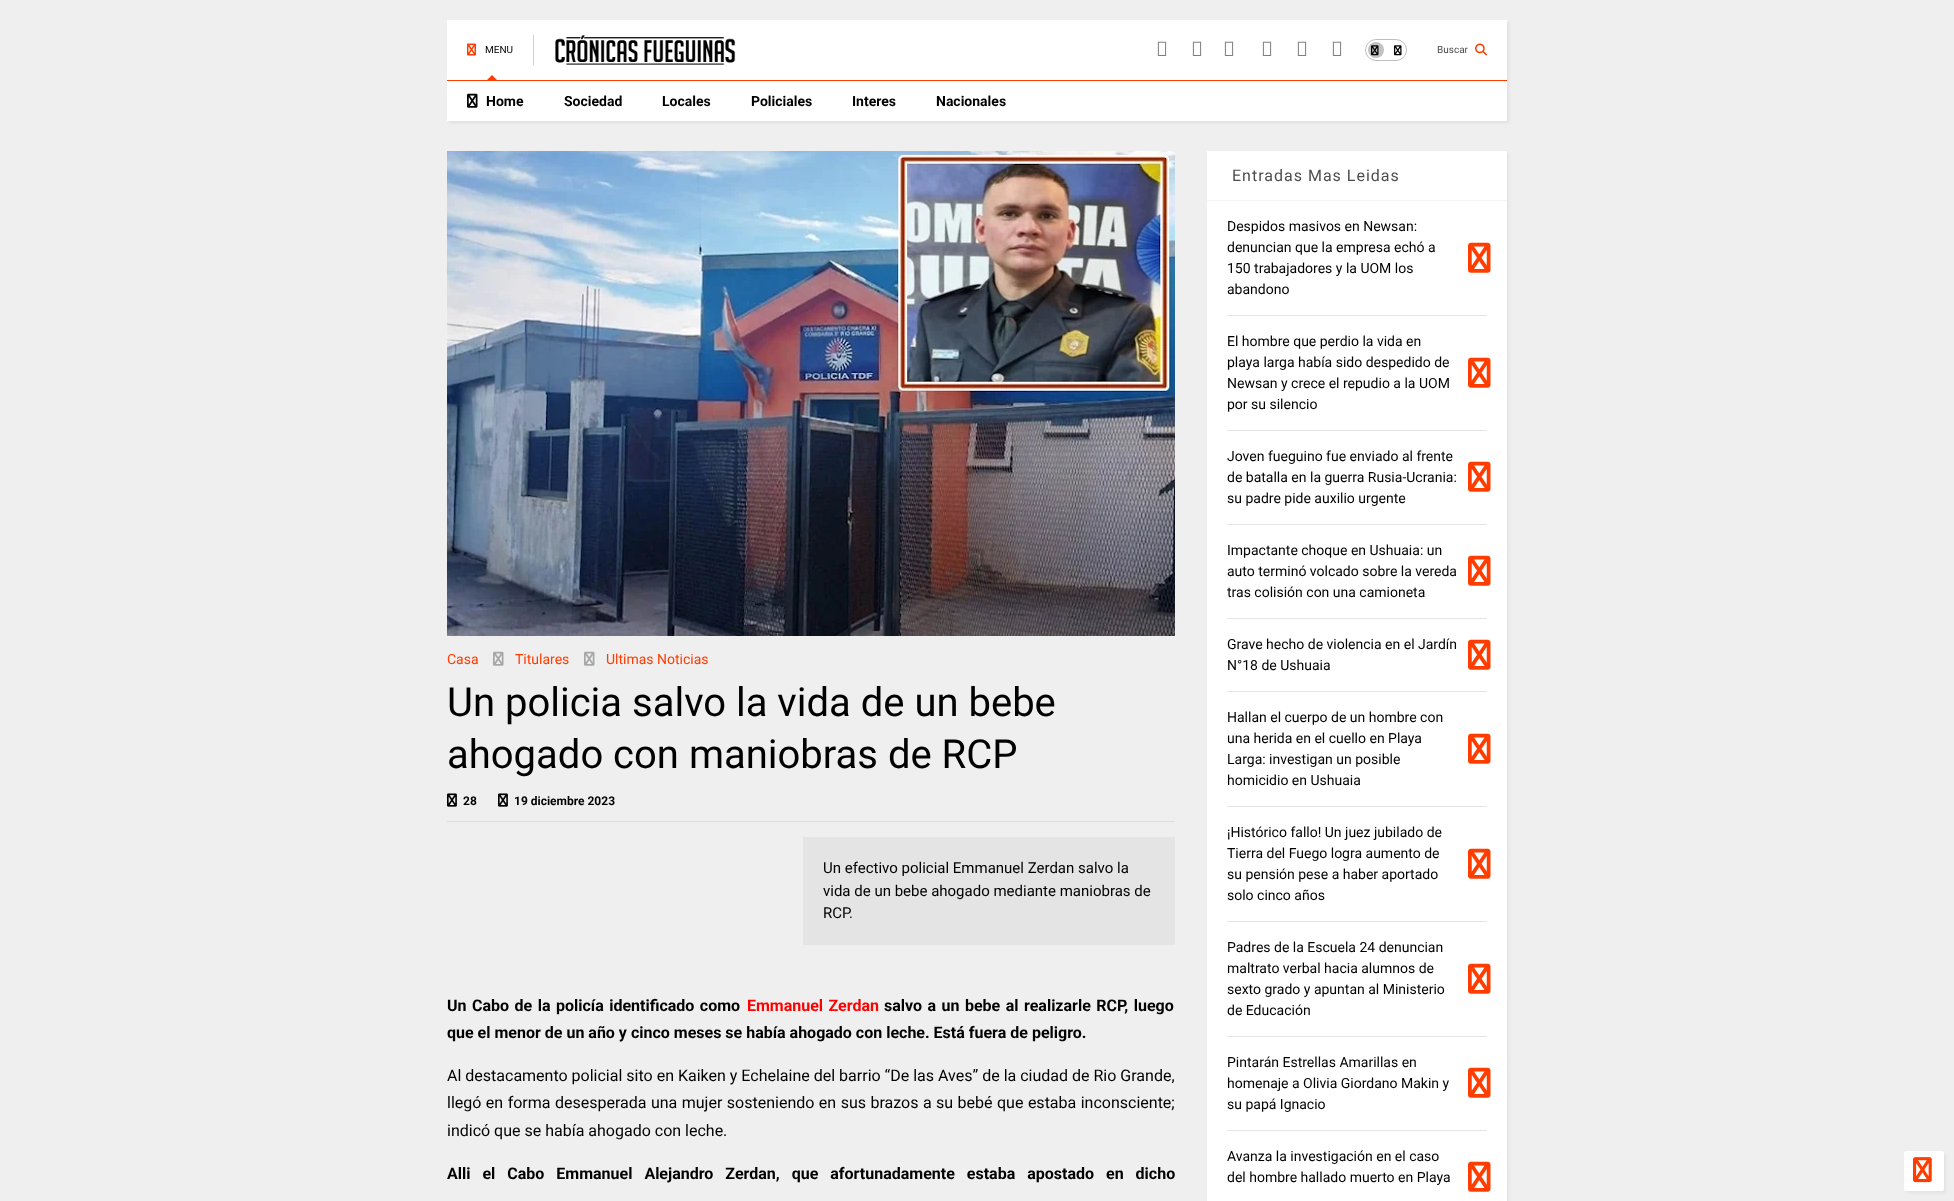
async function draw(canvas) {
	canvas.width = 1954;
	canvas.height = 1201;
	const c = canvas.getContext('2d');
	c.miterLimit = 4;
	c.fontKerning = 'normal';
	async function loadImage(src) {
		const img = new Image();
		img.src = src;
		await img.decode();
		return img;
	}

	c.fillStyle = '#efefef';
	c.fillRect(0, 0, 1954, 1201);
	c.fillStyle = '#7878781f';
	c.filter = 'blur(1.5px)';
	c.beginPath();
	c.rect(449, 22, 1060, 101);
	c.fill();
	c.filter = 'none';
	c.fillStyle = '#fff';
	c.fillRect(447, 20, 1060, 101);
	c.drawImage(await loadImage('img1.png'), 467, 43, 9, 13);
	c.font = '10px Roboto';
	c.fillStyle = '#000';
	c.fillText('MENU', 485, 53);
	c.fillStyle = '#ff3d00';
	c.beginPath();
	c.moveTo(497, 80);
	c.lineTo(487, 80);
	c.lineTo(492, 75);
	c.closePath();
	c.fill();
	c.fillStyle = '#cfcfcf';
	c.fillRect(533, 35, 1, 30);
	c.drawImage(await loadImage('img2.png'), 555, 35, 181, 30);
	c.drawImage(await loadImage('img3.png'), 1157, 41, 10, 15);
	c.drawImage(await loadImage('img3.png'), 1192, 41, 10, 15);
	c.drawImage(await loadImage('img3.png'), 1224, 41, 10, 15);
	c.drawImage(await loadImage('img3.png'), 1262, 41, 10, 15);
	c.drawImage(await loadImage('img3.png'), 1297, 41, 10, 15);
	c.drawImage(await loadImage('img3.png'), 1332, 41, 10, 15);
	c.beginPath();
	c.roundRect(1365.5, 39.5, 41, 21, 10.5);
	c.strokeStyle = '#bfbfbf';
	c.stroke();
	c.fillStyle = '#c2c2c2';
	c.beginPath();
	c.arc(1376, 50, 8, 0, 2 * Math.PI);
	c.fill();
	c.drawImage(await loadImage('img4.png'), 1371, 45, 8, 11);
	c.drawImage(await loadImage('img5.png'), 1394, 45, 8, 11);
	c.fillStyle = '#4d4d4d';
	c.fillText('Buscar', 1437, 53);
	c.drawImage(await loadImage('img6.png'), 1475, 43, 12, 13);
	c.fillStyle = '#ff3d00';
	c.fillRect(447, 80, 1060, 1);
	c.drawImage(await loadImage('img7.png'), 467, 93, 11, 15);
	c.font = 'bold 14px Roboto';
	c.fillStyle = '#000';
	for (const [text, x, y] of [
		['Home', 486, 106],
		['Sociedad', 564, 106],
		['Locales', 662, 106],
		['Policiales', 751, 106],
		['Interes', 852, 106],
		['Nacionales', 936, 106],
	]) {
		c.fillText(text, x, y);
	}
	c.drawImage(await loadImage('img8.png'), 447, 151, 728, 485);
	c.font = '14px Roboto';
	c.fillStyle = '#ff3d00';
	c.fillText('Casa', 447, 664);
	c.drawImage(await loadImage('img9.png'), 493, 651, 11, 15);
	c.fillText('Titulares', 515, 664);
	c.drawImage(await loadImage('img9.png'), 584, 651, 11, 15);
	c.fillText('Ultimas Noticias', 606, 664);
	c.font = '40px Roboto';
	c.fillStyle = '#000';
	c.fillText('Un policia salvo la vida de un bebe', 447, 716);
	c.fillText('ahogado con maniobras de RCP', 447, 768);
	c.fillStyle = '#ddd';
	c.fillRect(447, 821, 728, 1);
	c.drawImage(await loadImage('img10.png'), 447, 793, 10, 14);
	c.font = 'bold 12px Roboto';
	c.fillStyle = '#000';
	c.fillText('28', 463, 805);
	c.drawImage(await loadImage('img10.png'), 498, 793, 10, 14);
	c.fillText('19 diciembre 2023', 514, 805);
	c.fillStyle = '#e4e4e4';
	c.fillRect(803, 837, 372, 108);
	c.font = '15px Roboto';
	c.fillStyle = '#000';
	for (const [text, x, y] of [
		['Un efectivo policial Emmanuel Zerdan salvo la', 823, 873],
		['vida de un bebe ahogado mediante maniobras de', 823, 896],
		['RCP.', 823, 918],
	]) {
		c.fillText(text, x, y);
	}
	c.wordSpacing = '1.5px';
	c.font = 'bold 16px Roboto';
	c.fillText('Un Cabo de la policía identificado como', 447, 1011);
	c.fillStyle = '#f00';
	c.fillText('Emmanuel Zerdan', 747, 1011);
	c.fillStyle = '#000';
	c.fillText('salvo a un bebe al realizarle RCP, luego', 884, 1011);
	c.wordSpacing = '0px';
	c.fillText('que el menor de un año y cinco meses se había ahogado con leche. Está fuera de peligro.', 447, 1038);
	c.font = '16px Roboto';
	c.fillText('Al destacamento policial sito en Kaiken y Echelaine del barrio “De las Aves” de la ciudad de Rio Grande,', 447, 1081);
	c.wordSpacing = '0.5px';
	c.fillText('llegó en forma desesperada una mujer sosteniendo en sus brazos a su bebé que estaba inconsciente;', 447, 1108);
	c.wordSpacing = '0px';
	c.fillText('indicó que se había ahogado con leche.', 447, 1136);
	c.wordSpacing = '8px';
	c.font = 'bold 16px Roboto';
	c.fillText('Alli el Cabo Emmanuel Alejandro Zerdan, que afortunadamente estaba apostado en dicho', 447, 1179);
	c.fillStyle = '#0000000d';
	c.filter = 'blur(1.5px)';
	c.beginPath();
	c.rect(1209, 153, 300, 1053);
	c.fill();
	c.filter = 'none';
	c.fillStyle = '#fff';
	c.fillRect(1207, 151, 300, 1050);
	c.fillStyle = '#f4f4f4';
	c.fillRect(1207, 200, 300, 1);
	c.letterSpacing = '1px';
	c.wordSpacing = '0px';
	c.font = '16px Roboto';
	c.fillStyle = '#4d4d4d';
	c.fillText('Entradas Mas Leidas', 1232, 181);
	c.letterSpacing = '0px';
	c.font = '14px Roboto';
	c.fillStyle = '#000';
	for (const [text, x, y] of [
		['Despidos masivos en Newsan:', 1227, 231],
		['denuncian que la empresa echó a', 1227, 252],
		['150 trabajadores y la UOM los', 1227, 273],
		['abandono', 1227, 294],
	]) {
		c.fillText(text, x, y);
	}
	c.drawImage(await loadImage('img11.png'), 1468, 242, 23, 31);
	c.fillStyle = '#e4e4e4';
	c.fillRect(1227, 315, 260, 1);
	c.fillStyle = '#000';
	for (const [text, x, y] of [
		['El hombre que perdio la vida en', 1227, 346],
		['playa larga había sido despedido de', 1227, 367],
		['Newsan y crece el repudio a la UOM', 1227, 388],
		['por su silencio', 1227, 409],
	]) {
		c.fillText(text, x, y);
	}
	c.drawImage(await loadImage('img11.png'), 1468, 357, 23, 31);
	c.fillStyle = '#e4e4e4';
	c.fillRect(1227, 430, 260, 1);
	c.fillStyle = '#000';
	for (const [text, x, y] of [
		['Joven fueguino fue enviado al frente', 1227, 461],
		['de batalla en la guerra Rusia-Ucrania:', 1227, 482],
		['su padre pide auxilio urgente', 1227, 503],
	]) {
		c.fillText(text, x, y);
	}
	c.drawImage(await loadImage('img11.png'), 1468, 461, 23, 31);
	c.fillStyle = '#e4e4e4';
	c.fillRect(1227, 524, 260, 1);
	c.fillStyle = '#000';
	for (const [text, x, y] of [
		['Impactante choque en Ushuaia: un', 1227, 555],
		['auto terminó volcado sobre la vereda', 1227, 576],
		['tras colisión con una camioneta', 1227, 597],
	]) {
		c.fillText(text, x, y);
	}
	c.drawImage(await loadImage('img11.png'), 1468, 555, 23, 31);
	c.fillStyle = '#e4e4e4';
	c.fillRect(1227, 618, 260, 1);
	c.fillStyle = '#000';
	c.fillText('Grave hecho de violencia en el Jardín', 1227, 649);
	c.fillText('N°18 de Ushuaia', 1227, 670);
	c.drawImage(await loadImage('img11.png'), 1468, 639, 23, 31);
	c.fillStyle = '#e4e4e4';
	c.fillRect(1227, 691, 260, 1);
	c.fillStyle = '#000';
	for (const [text, x, y] of [
		['Hallan el cuerpo de un hombre con', 1227, 722],
		['una herida en el cuello en Playa', 1227, 743],
		['Larga: investigan un posible', 1227, 764],
		['homicidio en Ushuaia', 1227, 785],
	]) {
		c.fillText(text, x, y);
	}
	c.drawImage(await loadImage('img11.png'), 1468, 733, 23, 31);
	c.fillStyle = '#e4e4e4';
	c.fillRect(1227, 806, 260, 1);
	c.fillStyle = '#000';
	for (const [text, x, y] of [
		['¡Histórico fallo! Un juez jubilado de', 1227, 837],
		['Tierra del Fuego logra aumento de', 1227, 858],
		['su pensión pese a haber aportado', 1227, 879],
		['solo cinco años', 1227, 900],
	]) {
		c.fillText(text, x, y);
	}
	c.drawImage(await loadImage('img11.png'), 1468, 848, 23, 31);
	c.fillStyle = '#e4e4e4';
	c.fillRect(1227, 921, 260, 1);
	c.fillStyle = '#000';
	for (const [text, x, y] of [
		['Padres de la Escuela 24 denuncian', 1227, 952],
		['maltrato verbal hacia alumnos de', 1227, 973],
		['sexto grado y apuntan al Ministerio', 1227, 994],
		['de Educación', 1227, 1015],
	]) {
		c.fillText(text, x, y);
	}
	c.drawImage(await loadImage('img11.png'), 1468, 963, 23, 31);
	c.fillStyle = '#e4e4e4';
	c.fillRect(1227, 1036, 260, 1);
	c.fillStyle = '#000';
	for (const [text, x, y] of [
		['Pintarán Estrellas Amarillas en', 1227, 1067],
		['homenaje a Olivia Giordano Makin y', 1227, 1088],
		['su papá Ignacio', 1227, 1109],
	]) {
		c.fillText(text, x, y);
	}
	c.drawImage(await loadImage('img11.png'), 1468, 1067, 23, 31);
	c.fillStyle = '#e4e4e4';
	c.fillRect(1227, 1130, 260, 1);
	c.fillStyle = '#000';
	c.fillText('Avanza la investigación en el caso', 1227, 1161);
	c.fillText('del hombre hallado muerto en Playa', 1227, 1182);
	c.drawImage(await loadImage('img11.png'), 1468, 1161, 23, 31);
	c.fillStyle = '#0000000d';
	c.filter = 'blur(1.5px)';
	c.beginPath();
	c.roundRect(1906, 1153, 40, 40, 2);
	c.fill();
	c.filter = 'none';
	c.fillStyle = '#fff';
	c.beginPath();
	c.roundRect(1904, 1151, 40, 40, 2);
	c.fill();
	c.drawImage(await loadImage('img12.png'), 1913, 1157, 19, 26);
}

draw(document.querySelector('canvas'));
